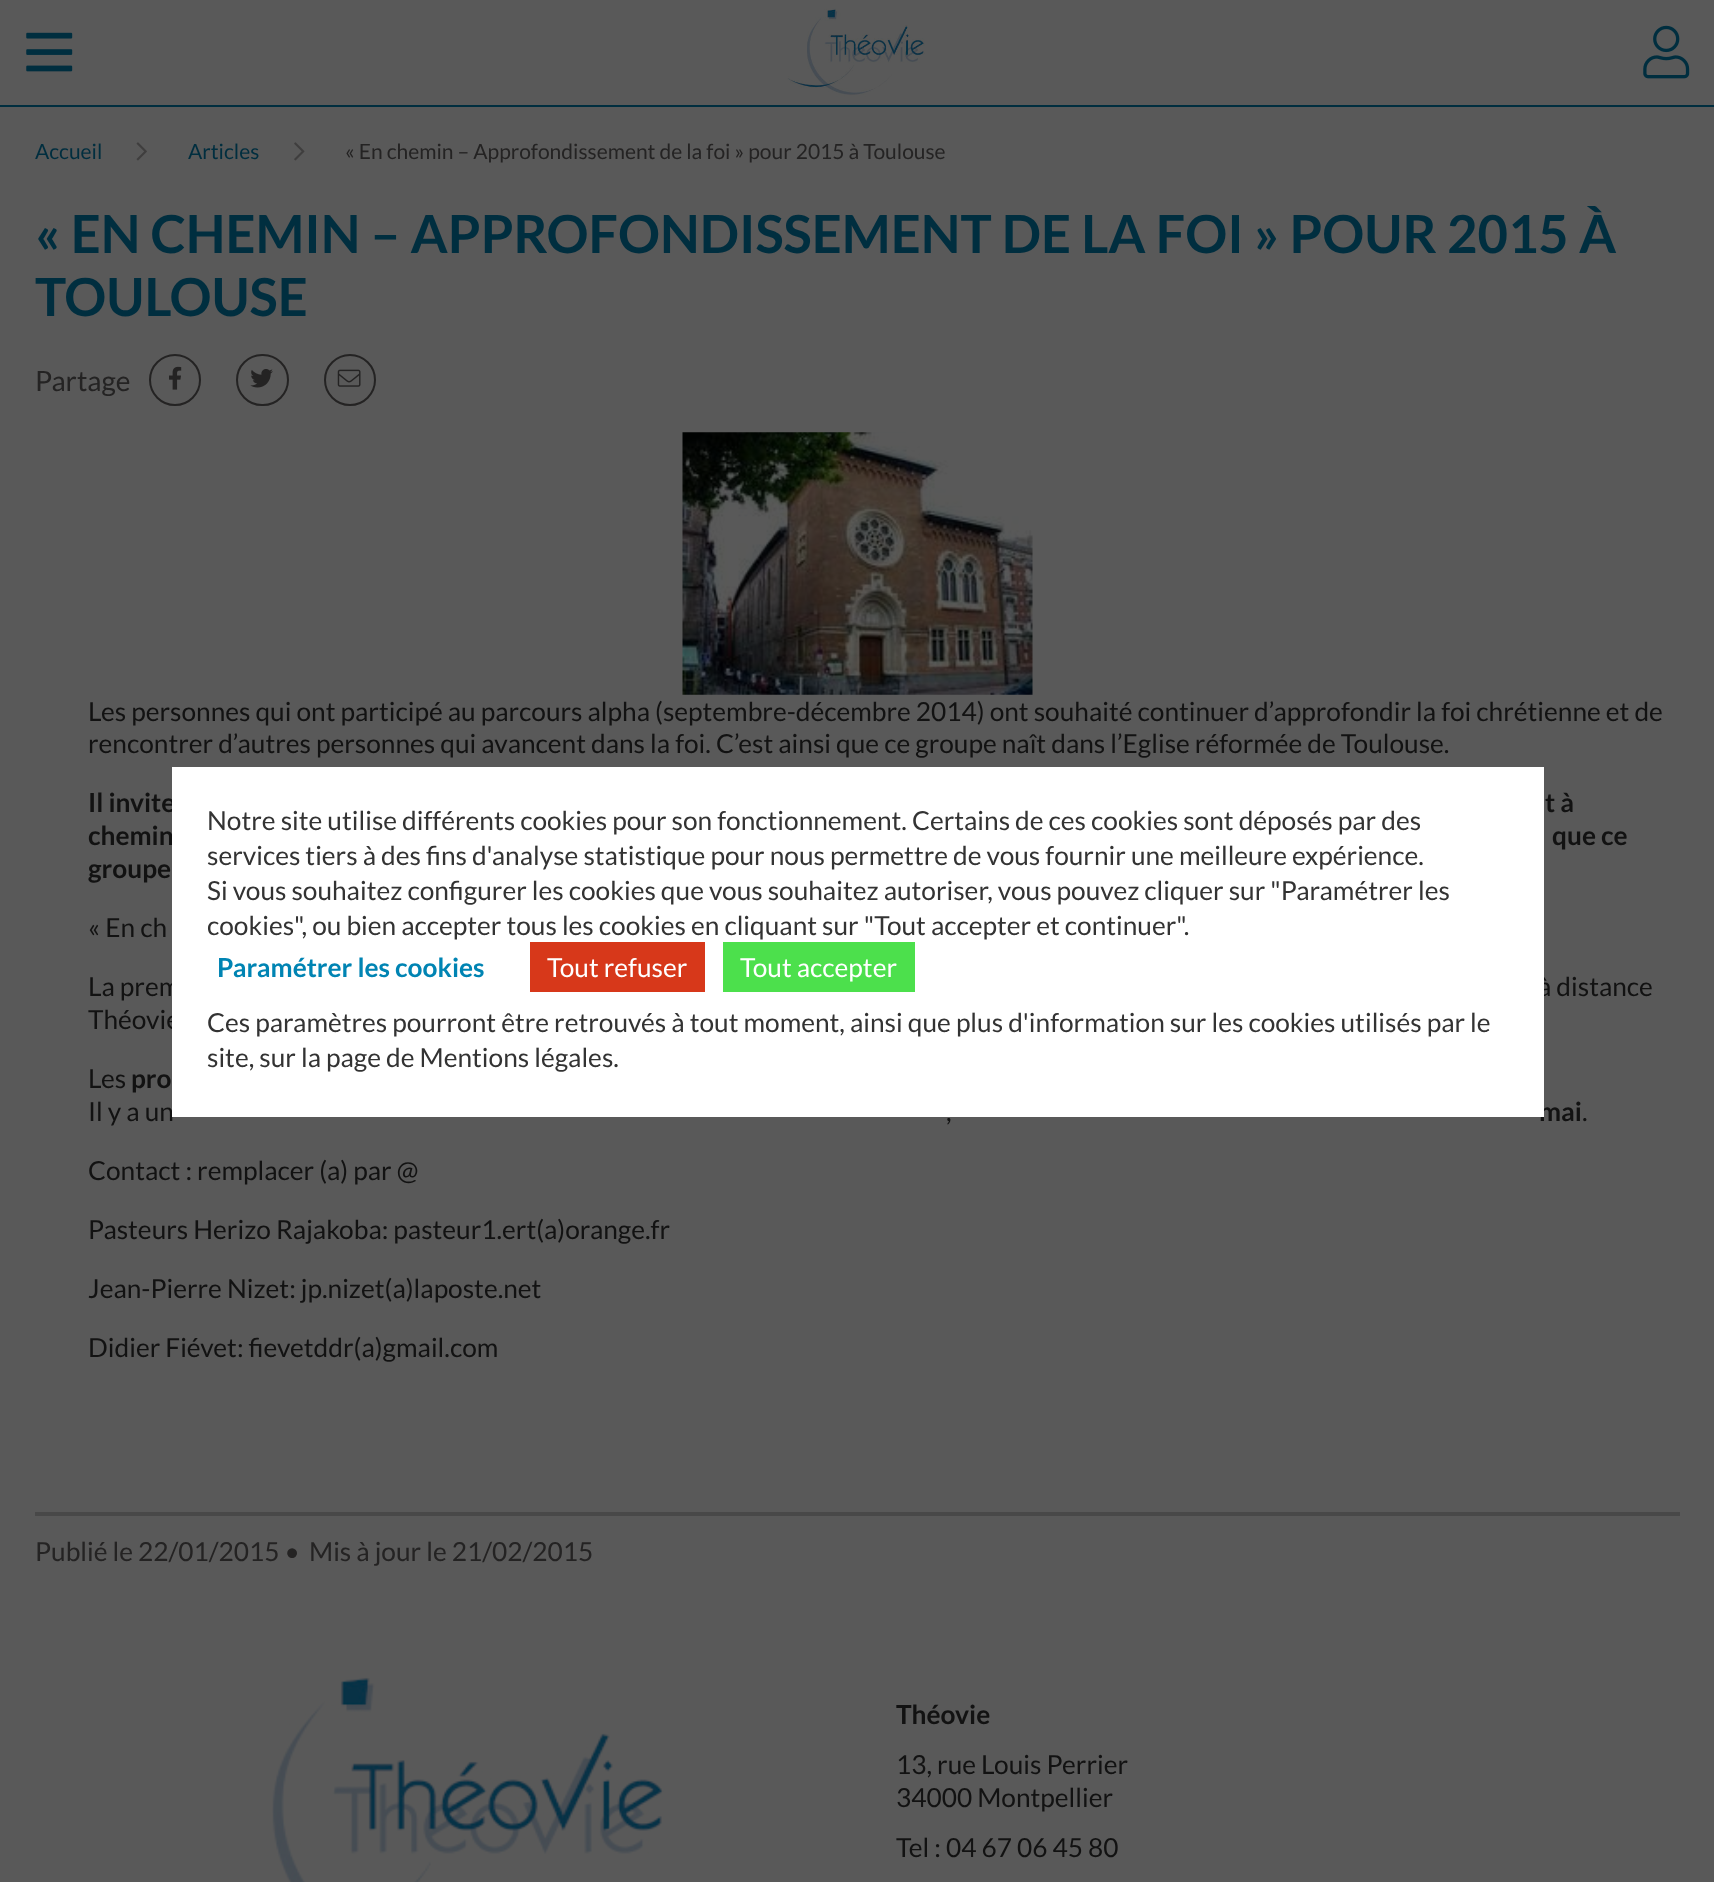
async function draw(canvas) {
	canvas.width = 1714;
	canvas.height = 1882;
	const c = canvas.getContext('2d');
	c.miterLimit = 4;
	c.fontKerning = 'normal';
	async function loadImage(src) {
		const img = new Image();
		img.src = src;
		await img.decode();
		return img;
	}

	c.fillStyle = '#595959';
	c.fillRect(0, 0, 1714, 1882);
	c.fillStyle = '#002e3f';
	c.fillRect(0, 105, 1714, 2);
	c.drawImage(await loadImage('img1.png'), 26, 32, 47, 40);
	c.drawImage(await loadImage('img2.png'), 787, 8, 138, 89);
	c.drawImage(await loadImage('img3.png'), 1643, 25, 47, 54);
	c.font = '21px Lato';
	c.fillText('Accueil', 35, 159);
	c.drawImage(await loadImage('img4.png'), 136, 142, 11, 19);
	c.fillText('Articles', 188, 159);
	c.drawImage(await loadImage('img5.png'), 294, 142, 11, 19);
	c.fillStyle = '#242323';
	c.fillText('« En chemin – Approfondissement de la foi » pour 2015 à Toulouse', 345, 159);
	c.font = 'bold 52.5px Lato';
	c.fillStyle = '#002e3f';
	c.fillText('« EN CHEMIN – APPROFONDISSEMENT DE LA FOI » POUR 2015 À', 35, 253);
	c.fillText('TOULOUSE', 35, 316);
	c.font = '28px Lato';
	c.fillStyle = '#242323';
	c.fillText('Partage', 35, 391);
	c.beginPath();
	c.arc(175, 380, 25, 0, 2 * Math.PI);
	c.strokeStyle = '#242323';
	c.lineWidth = 2;
	c.stroke();
	c.drawImage(await loadImage('img6.png'), 169, 366, 13, 24);
	c.beginPath();
	c.roundRect(237, 355, 51, 50, 25);
	c.stroke();
	c.drawImage(await loadImage('img7.png'), 250, 369, 23, 19);
	c.beginPath();
	c.arc(350, 380, 25, 0, 2 * Math.PI);
	c.stroke();
	c.drawImage(await loadImage('img8.png'), 337, 369, 24, 18);
	c.drawImage(await loadImage('img9.png'), 682, 432, 351, 263);
	c.font = '26.25px Lato';
	c.fillStyle = '#121212';
	c.fillText('Les personnes qui ont participé au parcours alpha (septembre-décembre 2014) ont souhaité continuer d’approfondir la foi chrétienne et de', 88, 721);
	c.fillText('rencontrer d’autres personnes qui avancent dans la foi. C’est ainsi que ce groupe naît dans l’Eglise réformée de Toulouse.', 88, 753);
	c.font = 'bold 26.25px Lato';
	for (const [text, x, y] of [
		['Il invite', 88, 812],
		['t à', 1545, 812],
		['chemin', 88, 845],
		['que ce', 1552, 845],
		['groupe', 88, 878],
	]) {
		c.fillText(text, x, y);
	}
	c.font = '26.25px Lato';
	for (const [text, x, y] of [
		['« En ch', 88, 937],
		['La prem', 88, 996],
		['à distance', 1538, 996],
		['Théovie', 88, 1029],
		['Les', 88, 1088],
	]) {
		c.fillText(text, x, y);
	}
	c.font = 'bold 26.25px Lato';
	c.fillText('pro', 131, 1088);
	c.font = '26.25px Lato';
	c.fillText('Il y a un', 88, 1121);
	c.fillText(',', 946, 1121);
	c.font = 'bold 26.25px Lato';
	c.fillText('mai', 1539, 1121);
	c.font = '26.25px Lato';
	for (const [text, x, y] of [
		['.', 1582, 1121],
		['Contact : remplacer (a) par @', 88, 1180],
		['Pasteurs Herizo Rajakoba: pasteur1.ert(a)orange.fr', 88, 1239],
		['Jean-Pierre Nizet: jp.nizet(a)laposte.net', 88, 1298],
		['Didier Fiévet: fievetddr(a)gmail.com', 88, 1357],
	]) {
		c.fillText(text, x, y);
	}
	c.fillStyle = '#484848';
	c.fillRect(35, 1512, 1645, 4);
	c.fillStyle = '#242323';
	c.fillText('Publié le 22/01/2015 •', 35, 1561);
	c.fillText('Mis à jour le 21/02/2015', 309, 1561);
	c.drawImage(await loadImage('img10.png'), 272, 1677, 392, 205);
	c.font = 'bold 26.25px Lato';
	c.fillStyle = '#121212';
	c.fillText('Théovie', 896, 1724);
	c.font = '26.25px Lato';
	for (const [text, x, y] of [
		['13, rue Louis Perrier', 896, 1774],
		['34000 Montpellier', 896, 1807],
		['Tel : 04 67 06 45 80', 896, 1857],
	]) {
		c.fillText(text, x, y);
	}
	c.fillStyle = '#fff';
	c.fillRect(172, 767, 1372, 350);
	c.fillStyle = '#333';
	for (const [text, x, y] of [
		['Notre site utilise différents cookies pour son fonctionnement. Certains de ces cookies sont déposés par des', 207, 830],
		['services tiers à des fins d\'analyse statistique pour nous permettre de vous fournir une meilleure expérience.', 207, 865],
		['Si vous souhaitez configurer les cookies que vous souhaitez autoriser, vous pouvez cliquer sur "Paramétrer les', 207, 900],
		['cookies", ou bien accepter tous les cookies en cliquant sur "Tout accepter et continuer".', 207, 935],
	]) {
		c.fillText(text, x, y);
	}
	c.font = 'bold 26.25px Lato';
	c.fillStyle = '#0084b3';
	c.fillText('Paramétrer les cookies', 217, 977);
	c.fillStyle = '#d7381a';
	c.fillRect(530, 942, 175, 50);
	c.font = '26.25px Lato';
	c.fillStyle = '#fff';
	c.fillText('Tout refuser', 547, 977);
	c.fillStyle = '#4ce04c';
	c.fillRect(723, 942, 192, 50);
	c.fillStyle = '#fff';
	c.fillText('Tout accepter', 740, 977);
	c.fillStyle = '#333';
	c.fillText('Ces paramètres pourront être retrouvés à tout moment, ainsi que plus d\'information sur les cookies utilisés par le', 207, 1032);
	c.fillText('site, sur la page de Mentions légales.', 207, 1067);
}

draw(document.querySelector('canvas'));
